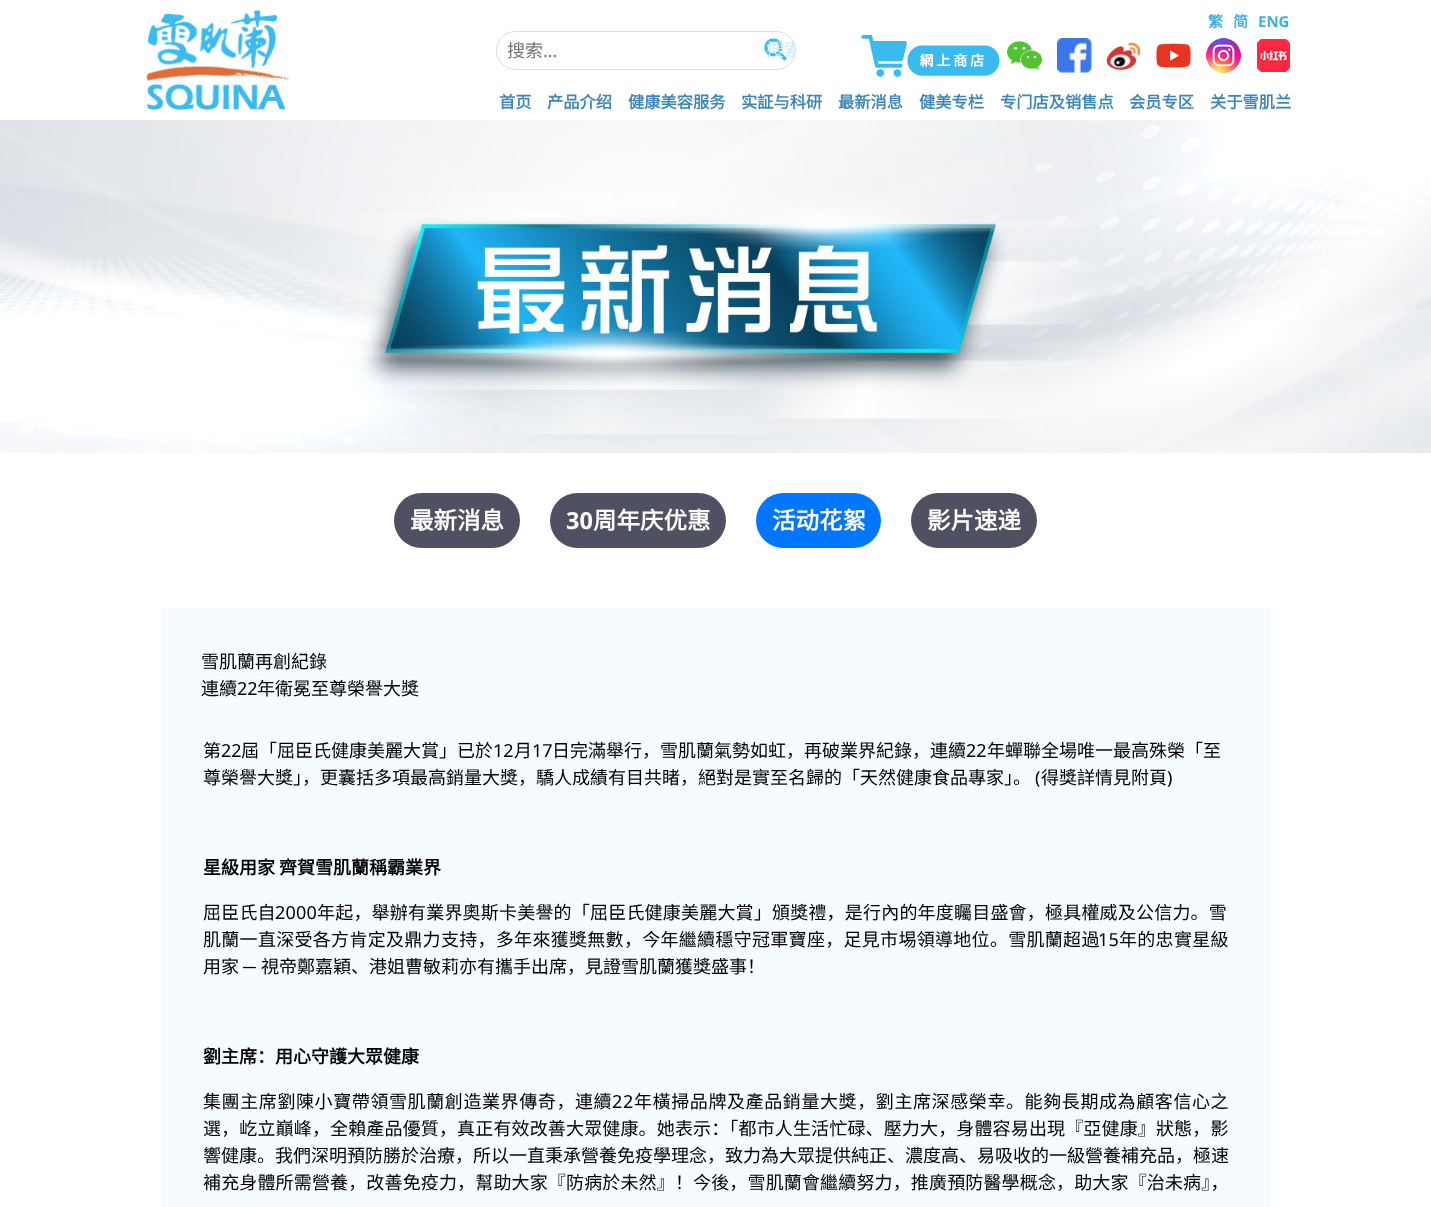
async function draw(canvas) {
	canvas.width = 1431;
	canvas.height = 1207;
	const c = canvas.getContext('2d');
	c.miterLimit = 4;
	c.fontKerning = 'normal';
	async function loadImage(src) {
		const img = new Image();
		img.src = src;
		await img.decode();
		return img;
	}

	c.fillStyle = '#fff';
	c.fillRect(0, 0, 1431, 1207);
	c.drawImage(await loadImage('img1.png'), 146, 10, 143, 100);
	c.font = 'bold 15px Noto Sans CJK HK';
	c.fillStyle = '#40afde';
	c.fillText('繁', 1208, 27);
	c.font = 'bold 15px Noto Sans CJK SC';
	c.fillText('简', 1233, 27);
	c.font = 'bold 15px Noto Sans';
	c.fillText('ENG', 1258, 27);
	c.beginPath();
	c.roundRect(496.5, 31.5, 299, 38, 19);
	c.strokeStyle = '#ddd';
	c.stroke();
	c.font = '18px Noto Sans CJK SC';
	c.fillStyle = '#757575';
	c.fillText('搜索', 507, 57);
	c.font = '18px Noto Sans';
	c.fillText('…', 543, 57);
	c.drawImage(await loadImage('img2.png'), 764, 38, 23, 23);
	c.save();
	c.beginPath();
	c.roundRect(756, 31, 40, 37, 18.5);
	c.clip();
	c.font = '18px Noto Sans CJK SC';
	c.fillStyle = '#c9ebf9';
	c.fillText('搜索', 766, 56);
	c.restore();
	c.drawImage(await loadImage('img3.png'), 861, 35, 139, 42);
	c.drawImage(await loadImage('img4.png'), 1007, 41, 35, 29);
	c.drawImage(await loadImage('img5.png'), 1057, 38, 35, 35);
	c.drawImage(await loadImage('img6.png'), 1106, 42, 35, 28);
	c.drawImage(await loadImage('img7.png'), 1156, 43, 35, 25);
	c.drawImage(await loadImage('img8.png'), 1206, 38, 35, 35);
	c.drawImage(await loadImage('img9.png'), 1257, 39, 33, 33);
	c.font = 'bold 16.25px Noto Sans CJK SC';
	c.fillStyle = '#3d86b8';
	for (const [text, x, y] of [
		['首页', 499, 108],
		['产品介绍', 547, 108],
		['健康美容服务', 628, 108],
		['实証与科研', 741, 108],
		['最新消息', 838, 108],
		['健美专栏', 919, 108],
		['专门店及销售点', 1000, 108],
		['会员专区', 1129, 108],
		['关于雪肌兰', 1210, 108],
	]) {
		c.fillText(text, x, y);
	}
	c.drawImage(await loadImage('img10.png'), 0, 120, 1431, 333);
	c.fillStyle = '#4f5062';
	c.beginPath();
	c.roundRect(394, 493, 126, 55, 27.5);
	c.fill();
	c.font = 'bold 23.5px Noto Sans CJK SC';
	c.fillStyle = '#fff';
	c.fillText('最新消息', 410, 529);
	c.fillStyle = '#4f5062';
	c.beginPath();
	c.roundRect(550, 493, 176, 55, 27.5);
	c.fill();
	c.font = 'bold 23.5px Noto Sans';
	c.fillStyle = '#fff';
	c.fillText('30', 566, 529);
	c.font = 'bold 23.5px Noto Sans CJK SC';
	c.fillText('周年庆优惠', 593, 529);
	c.fillStyle = '#0177ff';
	c.beginPath();
	c.roundRect(756, 493, 125, 55, 27.5);
	c.fill();
	c.fillStyle = '#fff';
	c.fillText('活动花絮', 772, 529);
	c.fillStyle = '#4f5062';
	c.beginPath();
	c.roundRect(911, 493, 126, 55, 27.5);
	c.fill();
	c.fillStyle = '#fff';
	c.fillText('影片速递', 927, 529);
	c.fillStyle = '#f6fbff';
	c.fillRect(161, 608, 1110, 599);
	c.font = '18px Noto Sans CJK SC';
	c.fillStyle = '#000';
	c.fillText('雪肌蘭再創紀錄', 201, 668);
	c.fillText('連續', 201, 695);
	c.font = '18px Noto Sans';
	c.fillText('22', 237, 695);
	c.font = '18px Noto Sans CJK SC';
	c.fillText('年衛冕至尊榮譽大獎', 257, 695);
	c.fillText('第', 203, 757);
	c.font = '18px Noto Sans';
	c.fillText('22', 221, 757);
	c.font = '18px Noto Sans CJK SC';
	c.fillText('屆「屈臣氏健康美麗大賞」已於', 241, 757);
	c.font = '18px Noto Sans';
	c.fillText('12', 493, 757);
	c.font = '18px Noto Sans CJK SC';
	c.fillText('月', 514, 757);
	c.font = '18px Noto Sans';
	c.fillText('17', 532, 757);
	c.font = '18px Noto Sans CJK SC';
	c.fillText('日完滿舉行，雪肌蘭氣勢如虹，再破業界紀錄，連續', 552, 757);
	c.font = '18px Noto Sans';
	c.fillText('22', 966, 757);
	c.font = '18px Noto Sans CJK SC';
	c.fillText('年蟬聯全場唯一最高殊榮「至', 987, 757);
	c.fillText('尊榮譽大獎」，更囊括多項最高銷量大獎，驕人成績有目共睹，絕對是實至名歸的「天然健康食品專家」。', 203, 784);
	c.font = '18px Noto Sans';
	c.fillText('(', 1035, 784);
	c.font = '18px Noto Sans CJK SC';
	c.fillText('得獎詳情見附頁', 1041, 784);
	c.font = '18px Noto Sans';
	c.fillText(')', 1167, 784);
	c.font = 'bold 18px Noto Sans CJK SC';
	c.fillText('星級用家', 203, 874);
	c.fillText('齊賀雪肌蘭稱霸業界', 279, 874);
	c.letterSpacing = '0.2px';
	c.font = '18px Noto Sans CJK SC';
	c.fillText('屈臣氏自', 203, 919);
	c.font = '18px Noto Sans';
	c.fillText('2000', 275, 919);
	c.font = '18px Noto Sans CJK SC';
	c.fillText('年起，舉辦有業界奧斯卡美譽的「屈臣氏健康美麗大賞」頒獎禮，是行內的年度矚目盛會，極具權威及公信力。雪', 317, 919);
	c.letterSpacing = '0.3px';
	c.fillText('肌蘭一直深受各方肯定及鼎力支持，多年來獲獎無數，今年繼續穩守冠軍寶座，足見市埸領導地位。雪肌蘭超過', 203, 946);
	c.font = '18px Noto Sans';
	c.fillText('15', 1098, 946);
	c.font = '18px Noto Sans CJK SC';
	c.fillText('年的忠實星級', 1119, 946);
	c.letterSpacing = '0px';
	c.fillText('用家', 203, 973);
	c.font = '18px Liberation Sans';
	c.fillText('─', 243, 973);
	c.font = '18px Noto Sans CJK SC';
	c.fillText('視帝鄭嘉穎、港姐曹敏莉亦有攜手出席，見證雪肌蘭獲獎盛事！', 261, 973);
	c.font = 'bold 18px Noto Sans CJK SC';
	c.fillText('劉主席：用心守護大眾健康', 203, 1063);
	c.letterSpacing = '0.6px';
	c.font = '18px Noto Sans CJK SC';
	c.fillText('集團主席劉陳小寶帶領雪肌蘭創造業界傳奇，連續', 203, 1108);
	c.font = '18px Noto Sans';
	c.fillText('22', 612, 1108);
	c.font = '18px Noto Sans CJK SC';
	c.fillText('年橫掃品牌及產品銷量大獎，劉主席深感榮幸。能夠長期成為顧客信心之', 634, 1108);
	c.letterSpacing = '0.15px';
	c.fillText('選，屹立巔峰，全賴產品優質，真正有效改善大眾健康。她表示：「都市人生活忙碌、壓力大，身體容易出現『亞健康』狀態，影', 203, 1135);
	c.letterSpacing = '0px';
	c.fillText('響健康。我們深明預防勝於治療，所以一直秉承營養免疫學理念，致力為大眾提供純正、濃度高、易吸收的一級營養補充品，極速', 203, 1162);
	c.letterSpacing = '0.15px';
	c.fillText('補充身體所需營養，改善免疫力，幫助大家『防病於未然』！今後，雪肌蘭會繼續努力，推廣預防醫學概念，助大家『治未病』，', 203, 1189);
}

draw(document.querySelector('canvas'));
